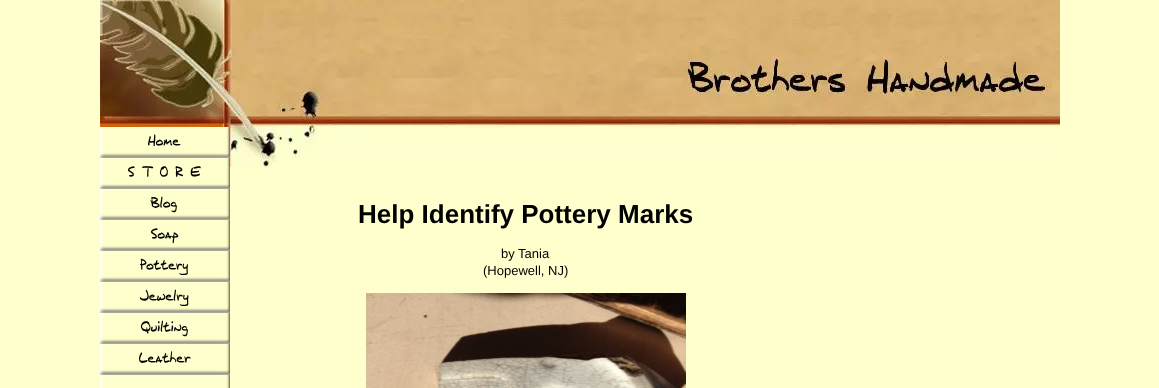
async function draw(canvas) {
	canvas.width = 1159;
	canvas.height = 388;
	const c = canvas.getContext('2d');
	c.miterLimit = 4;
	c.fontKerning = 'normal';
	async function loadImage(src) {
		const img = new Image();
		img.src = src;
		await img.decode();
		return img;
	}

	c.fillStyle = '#ffffcd';
	c.fillRect(0, 0, 1159, 388);
	c.drawImage(await loadImage('img1.png'), 100, 0, 960, 167);
	c.drawImage(await loadImage('img2.png'), 100, 127, 130, 31);
	c.font = '13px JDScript';
	c.fillStyle = '#000';
	c.fillText('Home', 148, 145);
	c.drawImage(await loadImage('img2.png'), 100, 158, 130, 31);
	c.fillText('S T O R E', 128, 176);
	c.drawImage(await loadImage('img2.png'), 100, 189, 130, 31);
	c.fillText('Blog', 151, 207);
	c.drawImage(await loadImage('img2.png'), 100, 220, 130, 31);
	c.fillText('Soap', 151, 238);
	c.drawImage(await loadImage('img2.png'), 100, 251, 130, 31);
	c.fillText('Pottery', 140, 269);
	c.drawImage(await loadImage('img2.png'), 100, 282, 130, 31);
	c.fillText('Jewelry', 140, 300);
	c.drawImage(await loadImage('img2.png'), 100, 313, 130, 31);
	c.fillText('Quilting', 141, 331);
	c.drawImage(await loadImage('img2.png'), 100, 344, 130, 31);
	c.fillText('Leather', 139, 362);
	c.drawImage(await loadImage('img3.png'), 100, 375, 130, 13);
	c.font = 'bold 26px Liberation Sans';
	c.fillText('Help Identify Pottery Marks', 358, 223);
	c.font = '13px Liberation Sans';
	c.fillText('by Tania', 501, 258);
	c.fillText('(Hopewell, NJ)', 483, 275);
	c.drawImage(await loadImage('img4.png'), 366, 293, 320, 95);
}

draw(document.querySelector('canvas'));
